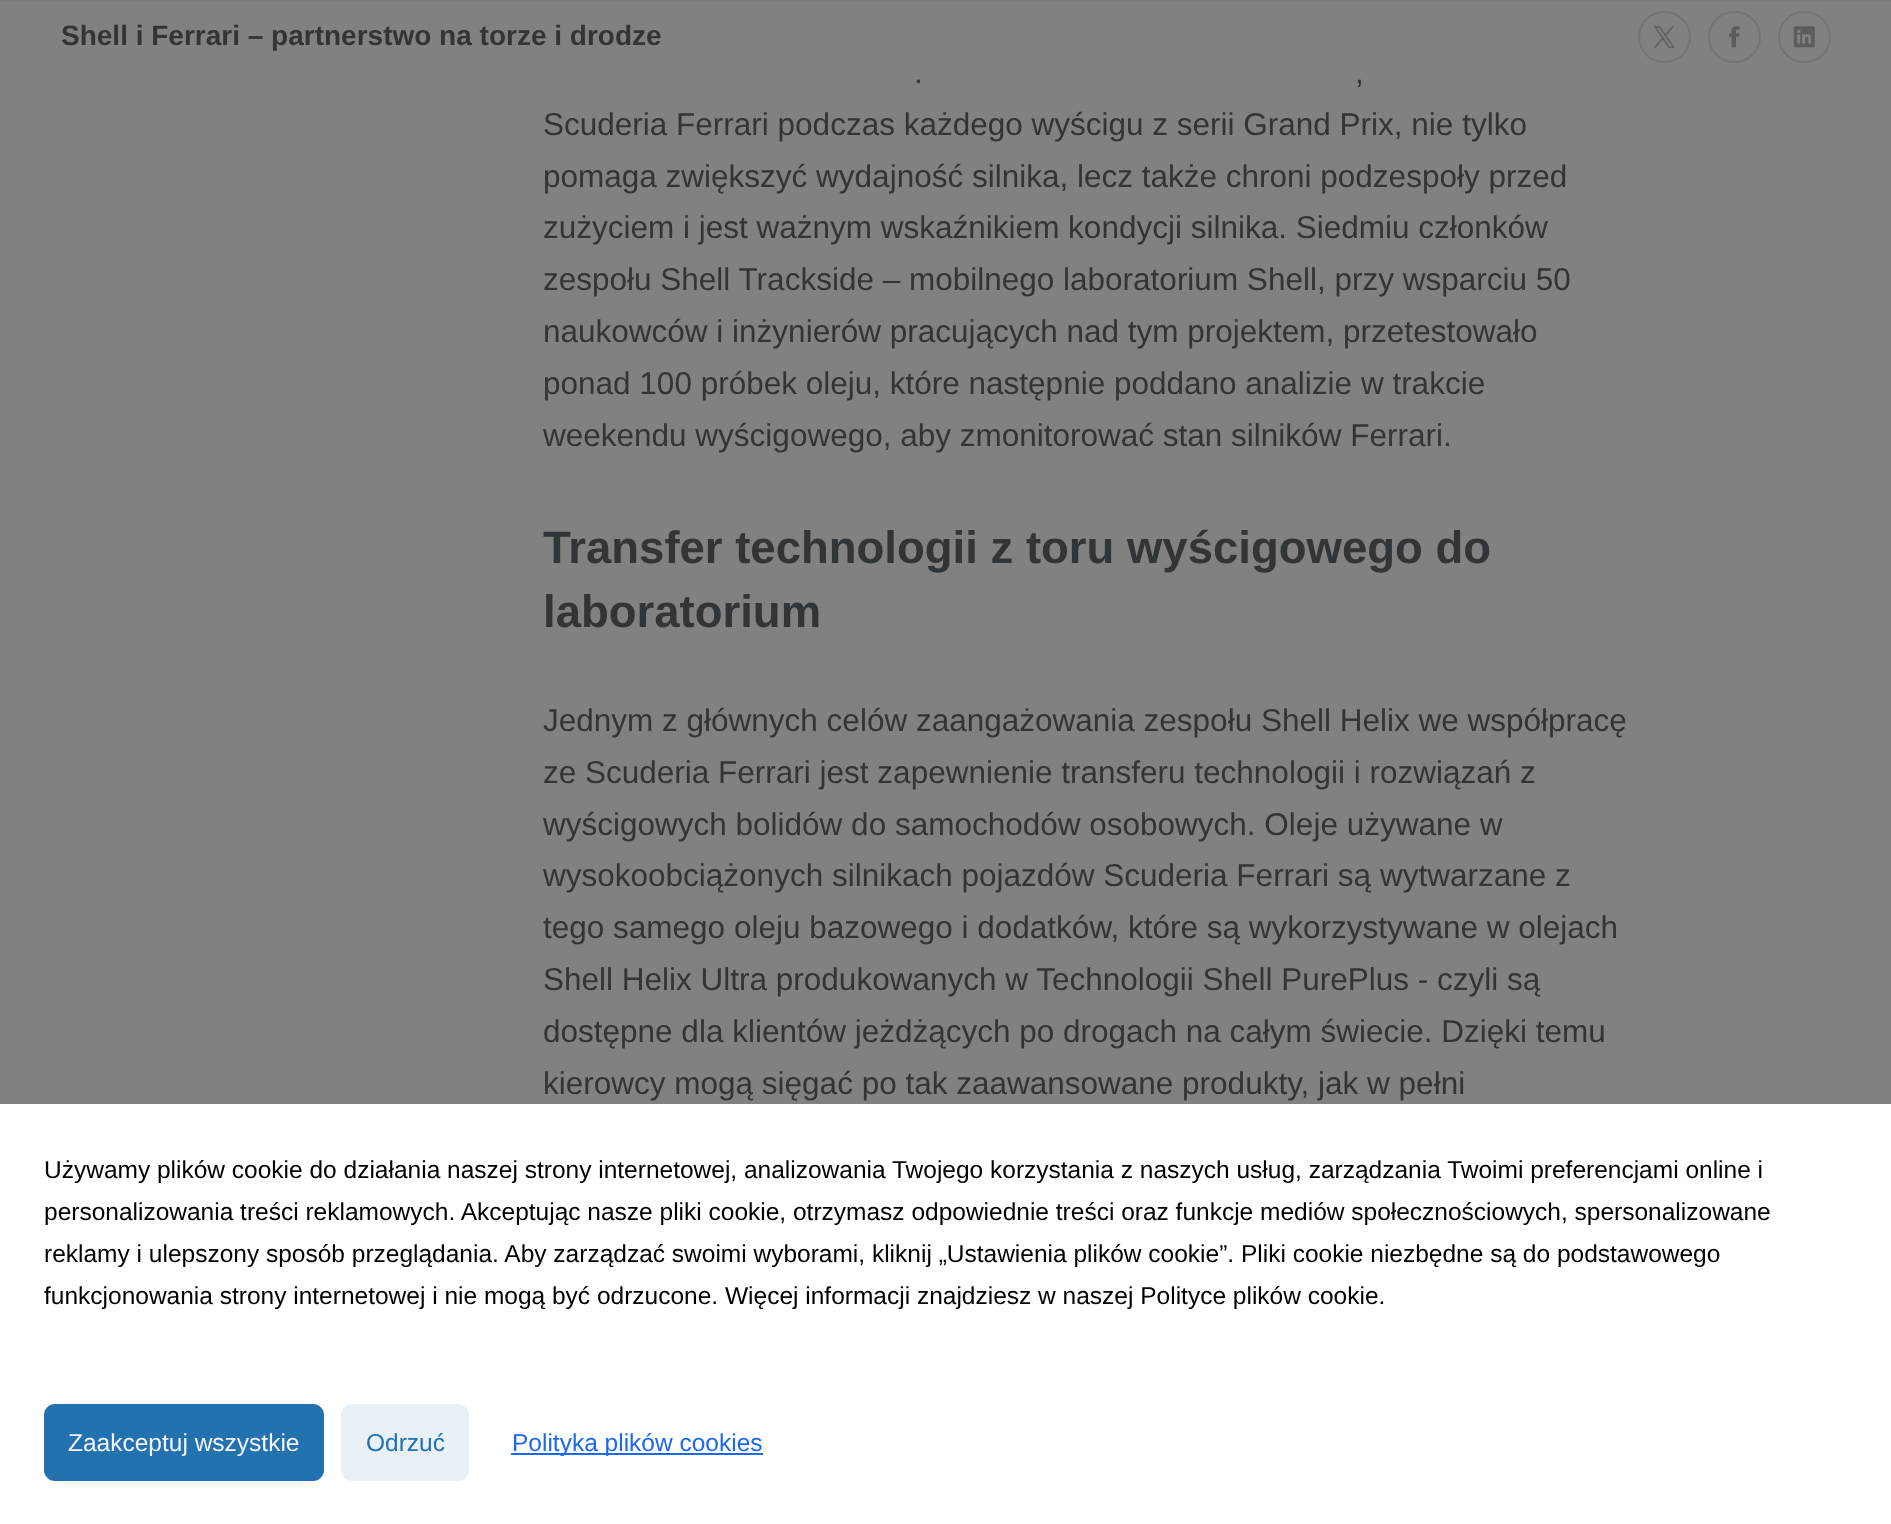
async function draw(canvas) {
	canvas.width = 1891;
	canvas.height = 1524;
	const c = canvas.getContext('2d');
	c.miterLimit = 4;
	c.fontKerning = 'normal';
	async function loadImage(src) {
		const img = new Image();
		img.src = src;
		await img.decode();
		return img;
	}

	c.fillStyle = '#818181';
	c.fillRect(0, 0, 1891, 1524);
	c.fillStyle = '#7b7b7b';
	c.fillRect(0, 0, 1891, 2);
	c.font = 'bold 28px Liberation Sans';
	c.fillStyle = '#313538';
	c.fillText('Shell i Ferrari – partnerstwo na torze i drodze', 61, 45);
	c.beginPath();
	c.roundRect(1639, 12, 51, 50, 25);
	c.strokeStyle = '#747474';
	c.lineWidth = 2;
	c.stroke();
	c.drawImage(await loadImage('img1.png'), 1654, 26, 21, 22);
	c.beginPath();
	c.roundRect(1709, 12, 51, 50, 25);
	c.stroke();
	c.drawImage(await loadImage('img2.png'), 1729, 26, 11, 22);
	c.beginPath();
	c.roundRect(1779, 12, 51, 50, 25);
	c.stroke();
	c.drawImage(await loadImage('img3.png'), 1793, 26, 22, 22);
	c.font = '31.5px Liberation Sans';
	for (const [text, x, y] of [
		['.', 914, 83],
		[',', 1355, 83],
		['Scuderia Ferrari podczas każdego wyścigu z serii Grand Prix, nie tylko', 543, 135],
		['pomaga zwiększyć wydajność silnika, lecz także chroni podzespoły przed', 543, 187],
		['zużyciem i jest ważnym wskaźnikiem kondycji silnika. Siedmiu członków', 543, 238],
		['zespołu Shell Trackside – mobilnego laboratorium Shell, przy wsparciu 50', 543, 290],
		['naukowców i inżynierów pracujących nad tym projektem, przetestowało', 543, 342],
		['ponad 100 próbek oleju, które następnie poddano analizie w trakcie', 543, 394],
		['weekendu wyścigowego, aby zmonitorować stan silników Ferrari.', 543, 446],
	]) {
		c.fillText(text, x, y);
	}
	c.font = 'bold 45.5px Liberation Sans';
	c.fillText('Transfer technologii z toru wyścigowego do', 543, 563);
	c.fillText('laboratorium', 543, 627);
	c.font = '31.5px Liberation Sans';
	for (const [text, x, y] of [
		['Jednym z głównych celów zaangażowania zespołu Shell Helix we współpracę', 543, 731],
		['ze Scuderia Ferrari jest zapewnienie transferu technologii i rozwiązań z', 543, 783],
		['wyścigowych bolidów do samochodów osobowych. Oleje używane w', 543, 835],
		['wysokoobciążonych silnikach pojazdów Scuderia Ferrari są wytwarzane z', 543, 886],
		['tego samego oleju bazowego i dodatków, które są wykorzystywane w olejach', 543, 938],
		['Shell Helix Ultra produkowanych w Technologii Shell PurePlus - czyli są', 543, 990],
		['dostępne dla klientów jeżdżących po drogach na całym świecie. Dzięki temu', 543, 1042],
		['kierowcy mogą sięgać po tak zaawansowane produkty, jak w pełni', 543, 1094],
	]) {
		c.fillText(text, x, y);
	}
	c.fillStyle = '#fff';
	c.fillRect(0, 1104, 1891, 420);
	c.font = '24.5px Liberation Sans';
	c.fillStyle = '#000';
	for (const [text, x, y] of [
		['Używamy plików cookie do działania naszej strony internetowej, analizowania Twojego korzystania z naszych usług, zarządzania Twoimi preferencjami online i', 44, 1178],
		['personalizowania treści reklamowych. Akceptując nasze pliki cookie, otrzymasz odpowiednie treści oraz funkcje mediów społecznościowych, spersonalizowane', 44, 1220],
		['reklamy i ulepszony sposób przeglądania. Aby zarządzać swoimi wyborami, kliknij „Ustawienia plików cookie”. Pliki cookie niezbędne są do podstawowego', 44, 1262],
		['funkcjonowania strony internetowej i nie mogą być odrzucone. Więcej informacji znajdziesz w naszej Polityce plików cookie.', 44, 1304],
	]) {
		c.fillText(text, x, y);
	}
	c.fillStyle = '#2272af';
	c.beginPath();
	c.roundRect(44, 1404, 280, 77, 11);
	c.fill();
	c.fillStyle = '#f5f4ff';
	c.fillText('Zaakceptuj wszystkie', 68, 1451);
	c.fillStyle = '#e9f1f7';
	c.beginPath();
	c.roundRect(341, 1404, 128, 77, 11);
	c.fill();
	c.fillStyle = '#2272af';
	c.fillText('Odrzuć', 366, 1451);
	c.fillStyle = '#1a69ef';
	c.fillRect(511, 1453, 252, 2);
	c.fillText('Polityka plików cookies', 512, 1451);
}

draw(document.querySelector('canvas'));
